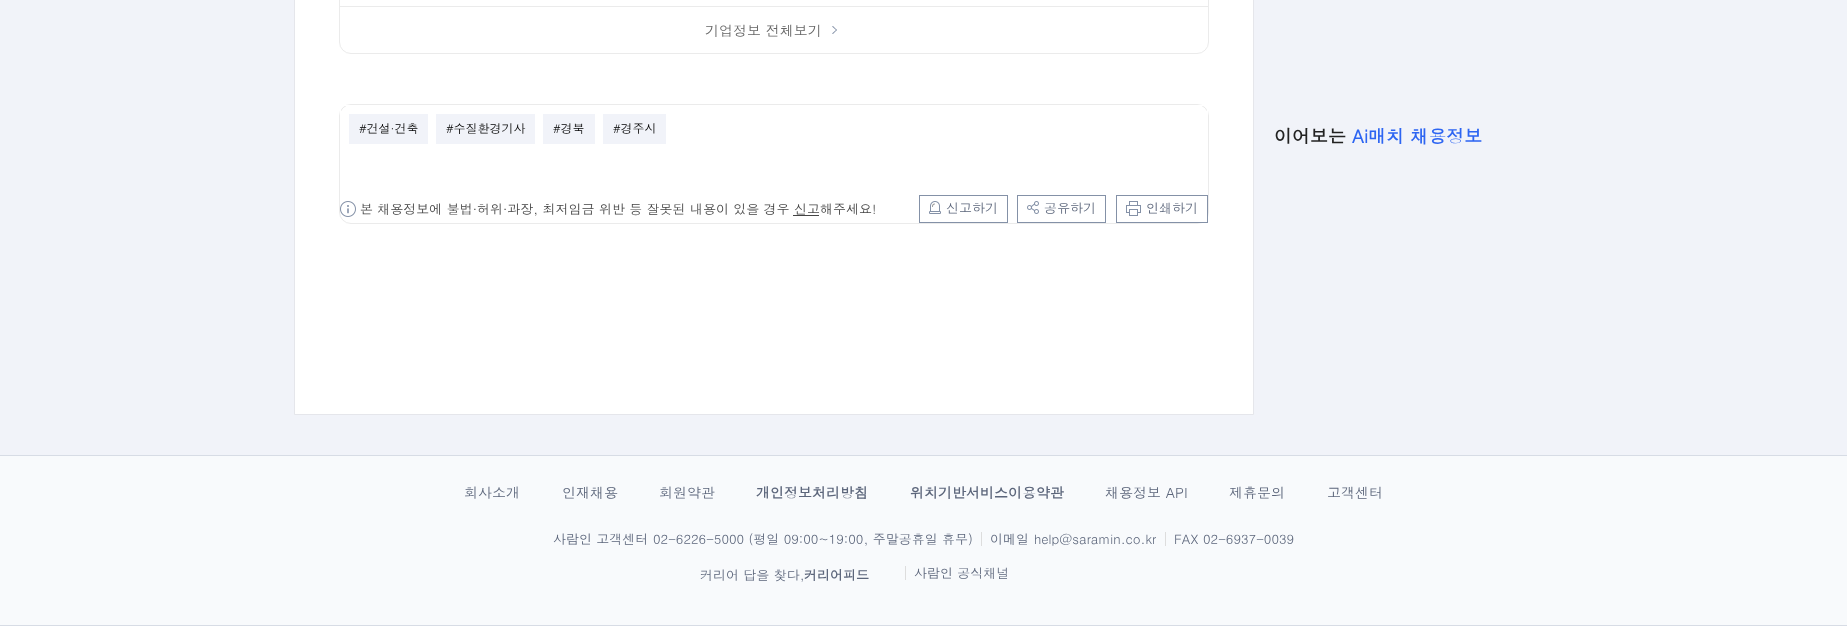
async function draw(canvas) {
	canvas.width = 1847;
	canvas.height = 626;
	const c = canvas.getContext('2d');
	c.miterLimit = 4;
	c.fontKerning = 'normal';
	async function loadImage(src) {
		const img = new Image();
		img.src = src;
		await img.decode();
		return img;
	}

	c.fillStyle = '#f1f3f9';
	c.fillRect(0, 0, 1847, 626);
	c.fillStyle = '#fff';
	c.beginPath();
	c.rect(294.5, -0.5, 959, 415);
	c.fill();
	c.strokeStyle = '#e5e6eb';
	c.stroke();
	c.beginPath();
	c.roundRect(339.5, -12.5, 869, 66, 11.5);
	c.strokeStyle = '#ebebeb';
	c.stroke();
	c.fillStyle = '#ebebeb';
	c.fillRect(340, 6, 868, 1);
	c.font = '14px Dotum';
	c.fillStyle = '#666';
	c.fillText('기업정보 전체보기', 705, 36);
	c.fillStyle = '#8491a7';
	c.beginPath();
	c.moveTo(832, 26.5);
	c.lineTo(833, 26);
	c.lineTo(837, 30);
	c.lineTo(836.5, 30.5);
	c.closePath();
	c.fill();
	c.beginPath();
	c.moveTo(832, 33.5);
	c.lineTo(836.5, 29.5);
	c.lineTo(837, 30);
	c.lineTo(833, 34);
	c.closePath();
	c.fill();
	c.beginPath();
	c.roundRect(339.5, 104.5, 869, 119, 11.5);
	c.stroke();
	c.strokeStyle = '#fff';
	c.strokeRect(340.5, 105.5, 867, 47);
	c.fillStyle = '#f1f3f9';
	c.fillRect(349, 114, 79, 30);
	c.font = '12px Dotum';
	c.fillStyle = '#000';
	c.fillText('#건설·건축', 359, 133);
	c.fillStyle = '#f1f3f9';
	c.fillRect(436, 114, 99, 30);
	c.fillStyle = '#000';
	c.fillText('#수질환경기사', 446, 133);
	c.fillStyle = '#f1f3f9';
	c.fillRect(543, 114, 52, 30);
	c.fillStyle = '#000';
	c.fillText('#경북', 553, 133);
	c.fillStyle = '#f1f3f9';
	c.fillRect(603, 114, 63, 30);
	c.fillStyle = '#000';
	c.fillText('#경주시', 613, 133);
	c.drawImage(await loadImage('img1.png'), 340, 201, 16, 16);
	c.font = '13px Dotum';
	c.fillStyle = '#444';
	c.fillText('본 채용정보에 불법·허위·과장, 최저임금 위반 등 잘못된 내용이 있을 경우 신고해주세요!', 360, 214);
	c.fillRect(793, 215, 26, 1);
	c.strokeStyle = '#8491a7';
	c.strokeRect(919.5, 195.5, 88, 27);
	c.drawImage(await loadImage('img2.png'), 929, 201, 12, 13);
	c.fillStyle = '#5c667b';
	c.fillText('신고하기', 946, 213);
	c.strokeRect(1017.5, 195.5, 88, 27);
	c.drawImage(await loadImage('img3.png'), 1027, 201, 12, 13);
	c.fillText('공유하기', 1044, 213);
	c.fillStyle = '#fff';
	c.fillRect(1202, 217, 5, 5);
	c.strokeRect(1116.5, 195.5, 91, 27);
	c.drawImage(await loadImage('img4.png'), 1126, 201, 15, 15);
	c.fillStyle = '#5c667b';
	c.fillText('인쇄하기', 1146, 213);
	c.font = 'bold 18px Dotum';
	c.fillStyle = '#222';
	c.fillText('이어보는', 1274, 143);
	c.fillStyle = '#2d65f2';
	c.fillText('Ai매치 채용정보', 1352, 143);
	for (const [x, y, w, h, color] of [
		[0, 456, 1847, 169, '#f8fafc'],
		[0, 455, 1847, 1, '#d7dce5'],
		[0, 625, 1847, 1, '#d7dce5'],
	]) {
		c.fillStyle = color;
		c.fillRect(x, y, w, h);
	}
	c.font = '14px Dotum';
	c.fillStyle = '#5c667b';
	for (const [text, x, y] of [
		['회사소개', 464, 498],
		['인재채용', 562, 498],
		['회원약관', 659, 498],
	]) {
		c.fillText(text, x, y);
	}
	c.font = 'bold 14px Dotum';
	c.fillText('개인정보처리방침', 756, 498);
	c.fillText('위치기반서비스이용약관', 910, 498);
	c.font = '14px Dotum';
	for (const [text, x, y] of [
		['채용정보 API', 1105, 498],
		['제휴문의', 1229, 498],
		['고객센터', 1327, 498],
	]) {
		c.fillText(text, x, y);
	}
	c.font = '13px Dotum';
	c.fillText('사람인 고객센터', 553, 544);
	c.fillText('02-6226-5000 (평일 09:00~19:00, 주말공휴일 휴무)', 653, 544);
	c.fillStyle = '#ddd';
	c.fillRect(981, 532, 1, 14);
	c.fillStyle = '#5c667b';
	c.fillText('이메일', 990, 544);
	c.fillText('help@saramin.co.kr', 1034, 544);
	c.fillStyle = '#ddd';
	c.fillRect(1165, 532, 1, 14);
	c.fillStyle = '#5c667b';
	for (const [text, x, y] of [
		['FAX', 1174, 544],
		['02-6937-0039', 1203, 544],
		['커리어 답을 찾다,', 700, 580],
	]) {
		c.fillText(text, x, y);
	}
	c.font = 'bold 13px Dotum';
	c.fillText('커리어피드', 804, 580);
	c.fillStyle = '#ddd';
	c.fillRect(905, 566, 1, 14);
	c.font = '13px Dotum';
	c.fillStyle = '#5c667b';
	c.fillText('사람인 공식채널', 914, 578);
}

draw(document.querySelector('canvas'));
